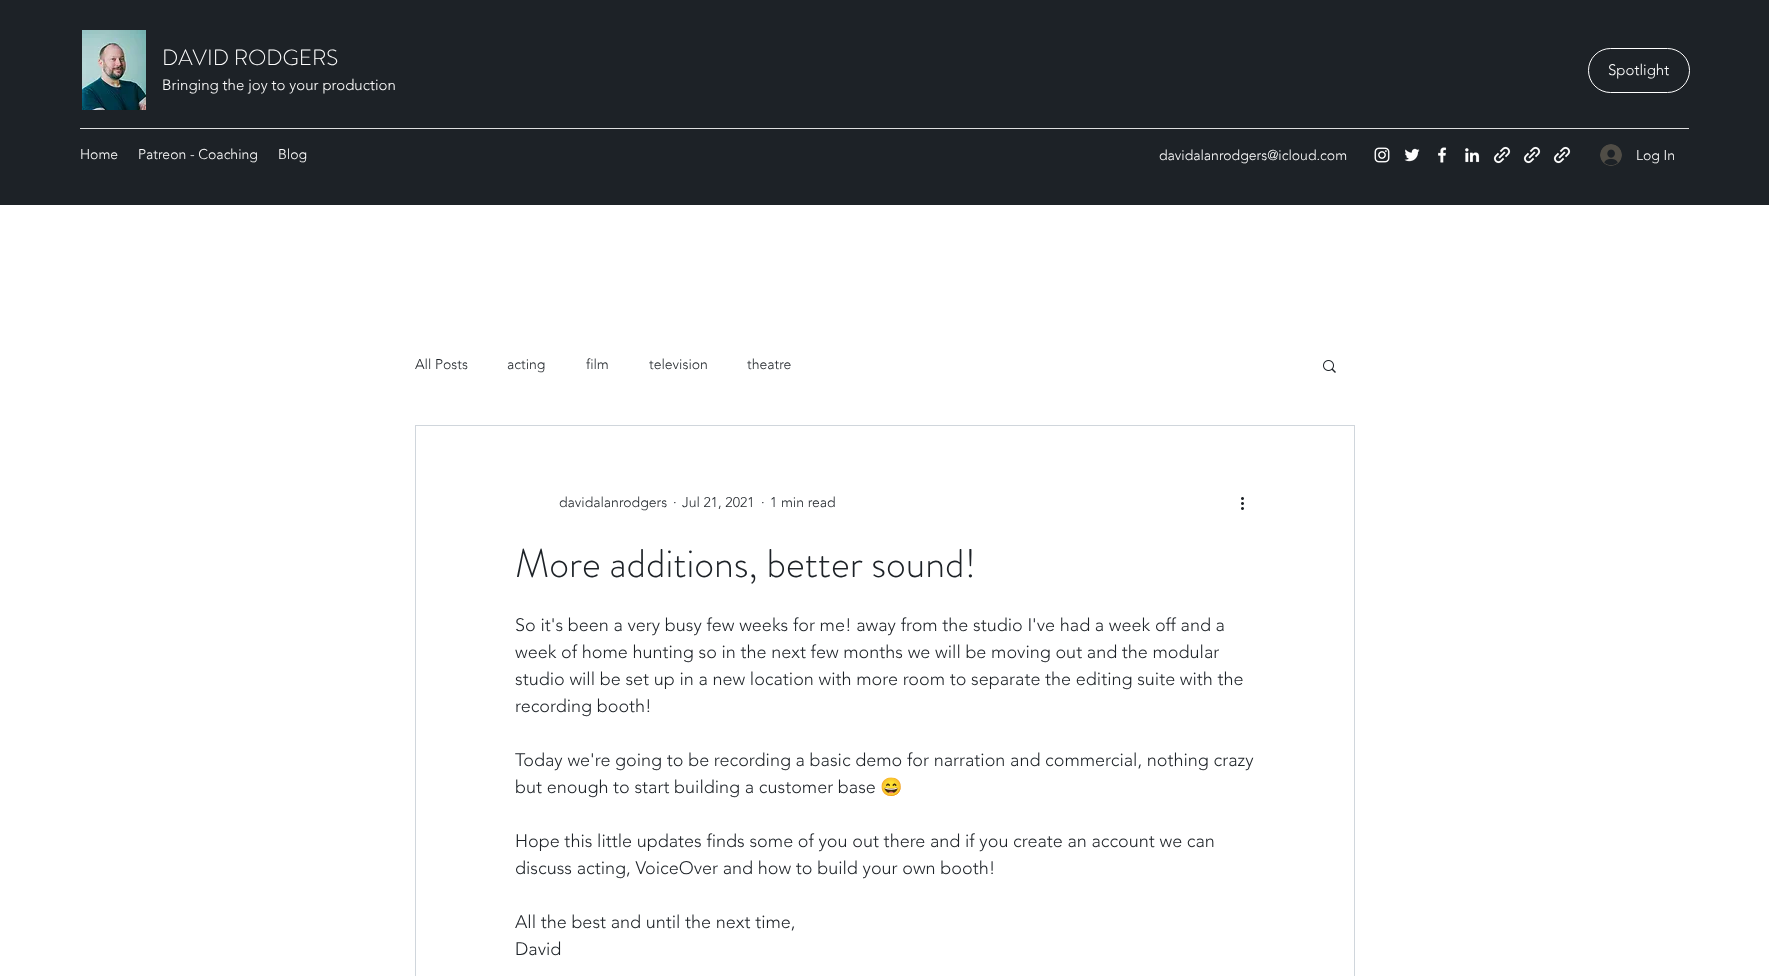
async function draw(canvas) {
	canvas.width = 1769;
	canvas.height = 976;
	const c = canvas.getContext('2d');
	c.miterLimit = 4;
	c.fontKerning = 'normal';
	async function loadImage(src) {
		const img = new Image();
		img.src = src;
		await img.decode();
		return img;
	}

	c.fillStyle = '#fff';
	c.fillRect(0, 0, 1769, 976);
	c.fillStyle = '#1d2227';
	c.fillRect(0, 0, 1769, 205);
	c.drawImage(await loadImage('img1.png'), 82, 30, 64, 80);
	c.font = '300 22px "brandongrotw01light"';
	c.fillStyle = '#fff';
	c.fillText('DAVID RODGERS', 162, 65);
	c.font = '300 15px "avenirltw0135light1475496"';
	c.fillText('Bringing the joy to your production', 162, 90);
	c.beginPath();
	c.roundRect(1588.5, 48.5, 101, 44, 22);
	c.strokeStyle = '#fff';
	c.stroke();
	c.fillText('Spotlight', 1608, 75);
	c.fillStyle = '#dddedf';
	c.fillRect(80, 128, 1609, 1);
	c.font = '300 14px "avenirltw0135light1475496"';
	c.fillStyle = '#fff';
	for (const [text, x, y] of [
		['Home', 80, 159],
		['Patreon - Coaching', 138, 159],
		['Blog', 278, 159],
		['davidalanrodgers@icloud.com', 1159, 160],
	]) {
		c.fillText(text, x, y);
	}
	c.drawImage(await loadImage('img2.png'), 1374, 147, 16, 16);
	c.drawImage(await loadImage('img3.png'), 1404, 148, 16, 14);
	c.drawImage(await loadImage('img4.png'), 1438, 147, 9, 16);
	c.drawImage(await loadImage('img5.png'), 1465, 148, 15, 15);
	c.drawImage(await loadImage('img6.png'), 1493, 146, 18, 18);
	c.drawImage(await loadImage('img6.png'), 1523, 146, 18, 18);
	c.drawImage(await loadImage('img6.png'), 1553, 146, 18, 18);
	c.drawImage(await loadImage('img7.png'), 1600, 144, 22, 22);
	c.fillText('Log In', 1636, 160);
	c.fillStyle = '#1d2227';
	for (const [text, x, y] of [
		['All Posts', 415, 369],
		['acting', 507, 369],
		['film', 586, 369],
		['television', 649, 369],
		['theatre', 747, 369],
	]) {
		c.fillText(text, x, y);
	}
	c.drawImage(await loadImage('img8.png'), 1323, 360, 13, 13);
	c.strokeStyle = '#d0d6dc';
	c.strokeRect(415.5, 425.5, 939, 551);
	for (const [text, x, y] of [
		['davidalanrodgers', 559, 507],
		['·', 673, 507],
		['Jul 21, 2021', 682, 507],
		['·', 761, 507],
		['1 min read', 770, 507],
	]) {
		c.fillText(text, x, y);
	}
	c.drawImage(await loadImage('img9.png'), 1241, 497, 3, 13);
	c.font = '300 40px "brandongrotw01light"';
	c.fillText('More additions, better sound!', 515, 577);
	c.font = '300 18px "avenirltw0135light1475496"';
	for (const [text, x, y] of [
		['So it\'s been a very busy few weeks for me! away from the studio I\'ve had a week off and a', 515, 631],
		['week of home hunting so in the next few months we will be moving out and the modular', 515, 658],
		['studio will be set up in a new location with more room to separate the editing suite with the', 515, 685],
		['recording booth!', 515, 712],
		['Today we\'re going to be recording a basic demo for narration and commercial, nothing crazy', 515, 766],
		['but enough to start building a customer base', 515, 793],
	]) {
		c.fillText(text, x, y);
	}
	c.font = '18px Noto Color Emoji';
	c.fillText('😄', 880, 793);
	c.font = '300 18px "avenirltw0135light1475496"';
	for (const [text, x, y] of [
		['Hope this little updates finds some of you out there and if you create an account we can', 515, 847],
		['discuss acting, VoiceOver and how to build your own booth!', 515, 874],
		['All the best and until the next time,', 515, 928],
		['David', 515, 955],
	]) {
		c.fillText(text, x, y);
	}
}

draw(document.querySelector('canvas'));
